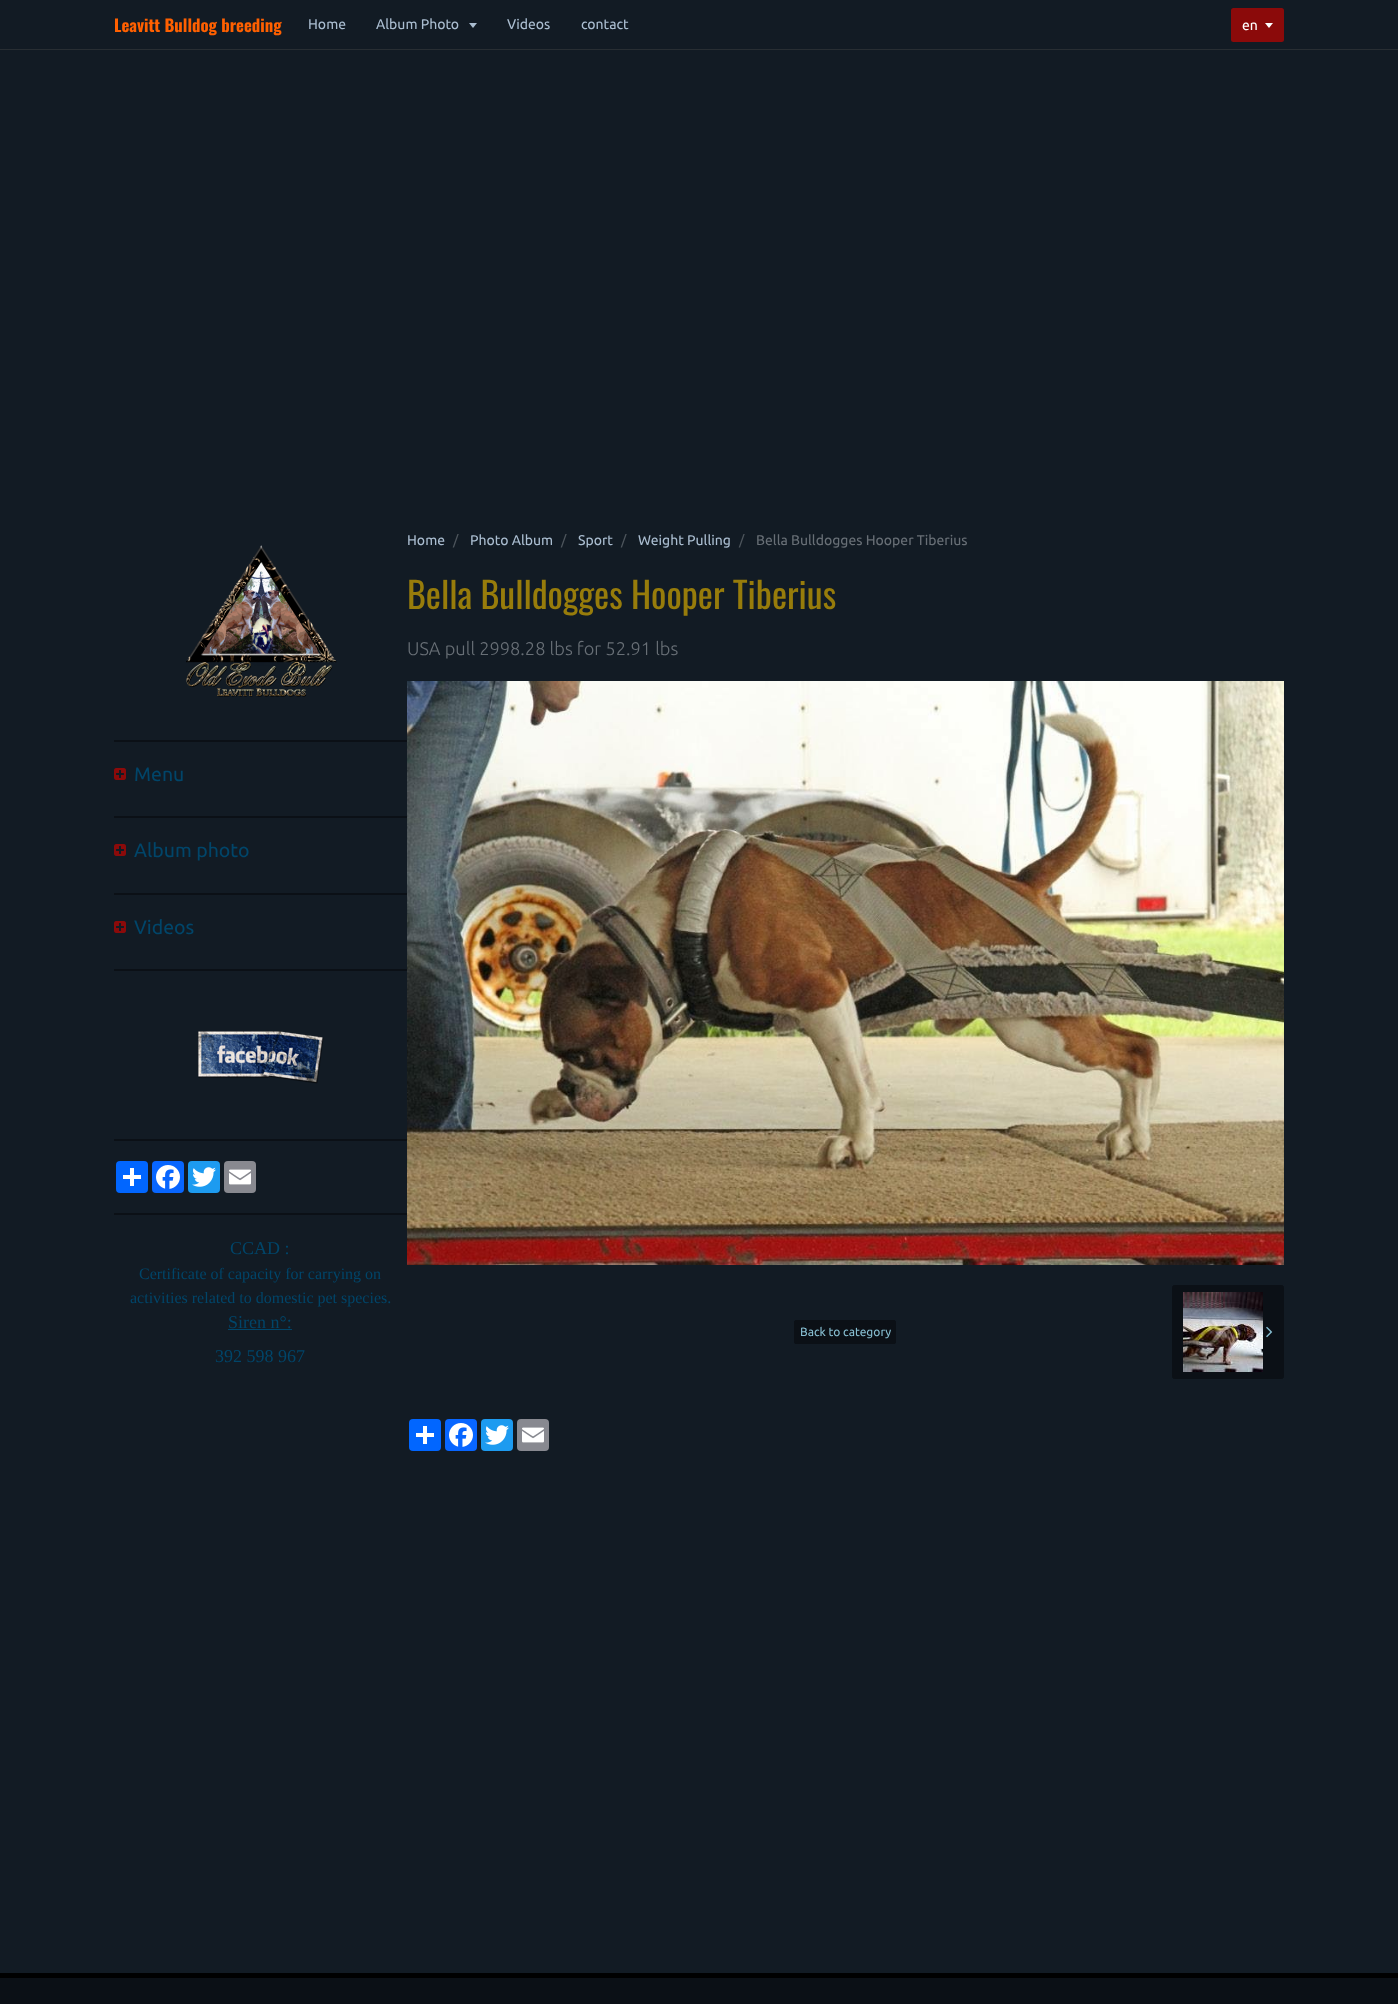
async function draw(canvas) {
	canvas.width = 1398;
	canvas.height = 2004;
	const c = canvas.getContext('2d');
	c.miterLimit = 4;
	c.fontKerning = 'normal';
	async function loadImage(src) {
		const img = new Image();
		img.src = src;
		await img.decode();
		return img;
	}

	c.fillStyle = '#121b24';
	c.fillRect(0, 0, 1398, 2004);
	c.fillStyle = '#282e33';
	c.fillRect(0, 49, 1398, 1);
	c.font = 'bold 16.75px Oswald';
	c.fillStyle = '#ff6000';
	c.fillText('Leavitt Bulldog breeding', 114, 32);
	c.font = '14px Ubuntu';
	c.fillStyle = '#aabdd0';
	c.fillText('Home', 308, 29);
	c.fillText('Album Photo', 376, 29);
	c.beginPath();
	c.moveTo(469, 23);
	c.lineTo(477, 23);
	c.lineTo(473, 28);
	c.closePath();
	c.fill();
	c.fillText('Videos', 507, 29);
	c.fillText('contact', 581, 29);
	c.fillStyle = '#8b0a0a';
	c.beginPath();
	c.roundRect(1231, 8, 53, 34, 2.5);
	c.fill();
	c.fillStyle = '#fff';
	c.fillText('en', 1242, 30);
	c.beginPath();
	c.moveTo(1265, 23);
	c.lineTo(1273, 23);
	c.lineTo(1269, 28);
	c.closePath();
	c.fill();
	c.fillStyle = '#0b1016';
	c.fillRect(114, 740, 293, 2);
	c.drawImage(await loadImage('img1.png'), 186, 545, 151, 152);
	c.fillRect(114, 816, 293, 2);
	c.drawImage(await loadImage('img2.png'), 114, 768, 12, 12);
	c.font = '19.5px Ubuntu';
	c.fillStyle = '#014569';
	c.fillText('Menu', 134, 781);
	c.fillStyle = '#0b1016';
	c.fillRect(114, 893, 293, 2);
	c.drawImage(await loadImage('img2.png'), 114, 844, 12, 12);
	c.fillStyle = '#014569';
	c.fillText('Album photo', 134, 857);
	c.fillStyle = '#0b1016';
	c.fillRect(114, 969, 293, 2);
	c.drawImage(await loadImage('img2.png'), 114, 921, 12, 12);
	c.fillStyle = '#014569';
	c.fillText('Videos', 134, 934);
	c.fillStyle = '#0b1016';
	c.fillRect(114, 1139, 293, 2);
	c.drawImage(await loadImage('img3.png'), 198, 1031, 126, 53);
	c.fillRect(114, 1213, 293, 2);
	c.fillStyle = '#0166ff';
	c.beginPath();
	c.roundRect(116, 1161, 32, 32, 4);
	c.fill();
	c.fillStyle = '#fff';
	c.fillRect(130, 1168, 4, 18);
	c.fillRect(123, 1175, 18, 4);
	c.fillStyle = '#0866ff';
	c.beginPath();
	c.roundRect(152, 1161, 32, 32, 4);
	c.fill();
	c.drawImage(await loadImage('img4.png'), 156, 1165, 24, 24);
	c.fillStyle = '#1d9bf0';
	c.beginPath();
	c.roundRect(188, 1161, 32, 32, 4);
	c.fill();
	c.drawImage(await loadImage('img5.png'), 192, 1167, 24, 20);
	c.fillStyle = '#888990';
	c.beginPath();
	c.roundRect(224, 1161, 32, 32, 4);
	c.fill();
	c.drawImage(await loadImage('img6.png'), 229, 1169, 22, 16);
	c.font = '18px Liberation Serif';
	c.fillStyle = '#014569';
	c.fillText('CCAD :', 230, 1254);
	c.font = '16px Liberation Serif';
	c.fillText('Certificate of capacity for carrying on', 139, 1279);
	c.fillText('activities related to domestic pet species.', 130, 1303);
	c.font = '18px Liberation Serif';
	c.fillText('Siren n°:', 228, 1328);
	c.fillRect(228, 1329, 64, 1);
	c.fillText('392 598 967', 215, 1362);
	c.font = '14px Ubuntu';
	c.fillStyle = '#aabdd0';
	c.fillText('Home', 407, 545);
	c.fillStyle = '#4e565d';
	c.fillText('/', 453, 545);
	c.fillStyle = '#aabdd0';
	c.fillText('Photo Album', 470, 545);
	c.fillStyle = '#4e565d';
	c.fillText('/', 561, 545);
	c.fillStyle = '#aabdd0';
	c.fillText('Sport', 578, 545);
	c.fillStyle = '#4e565d';
	c.fillText('/', 621, 545);
	c.fillStyle = '#aabdd0';
	c.fillText('Weight Pulling', 638, 545);
	c.fillStyle = '#4e565d';
	c.fillText('/', 739, 545);
	c.fillStyle = '#686f76';
	c.fillText('Bella Bulldogges Hooper Tiberius', 756, 545);
	c.font = '36px Oswald';
	c.fillStyle = '#977c0b';
	c.fillText('Bella Bulldogges Hooper Tiberius', 407, 609);
	c.font = '300 18.25px Ubuntu';
	c.fillStyle = '#686f76';
	c.fillText('USA pull 2998.28 lbs for 52.91 lbs', 407, 655);
	c.drawImage(await loadImage('img7.png'), 407, 681, 877, 584);
	c.fillStyle = '#0b1016';
	c.beginPath();
	c.roundRect(794.5, 1320.5, 101, 23, 1.5);
	c.fill();
	c.strokeStyle = '#0b1016';
	c.stroke();
	c.font = '12px Ubuntu';
	c.fillStyle = '#86bdd0';
	c.fillText('Back to category', 800, 1336);
	c.fillStyle = '#0b1016';
	c.beginPath();
	c.roundRect(1172.5, 1285.5, 111, 93, 2);
	c.fill();
	c.stroke();
	c.drawImage(await loadImage('img8.png'), 1183, 1292, 80, 80);
	c.drawImage(await loadImage('img9.png'), 1266, 1326, 7, 12);
	c.fillStyle = '#0166ff';
	c.beginPath();
	c.roundRect(409, 1419, 32, 32, 4);
	c.fill();
	c.fillStyle = '#fff';
	c.fillRect(423, 1426, 4, 18);
	c.fillRect(416, 1433, 18, 4);
	c.fillStyle = '#0866ff';
	c.beginPath();
	c.roundRect(445, 1419, 32, 32, 4);
	c.fill();
	c.drawImage(await loadImage('img4.png'), 449, 1423, 24, 24);
	c.fillStyle = '#1d9bf0';
	c.beginPath();
	c.roundRect(481, 1419, 32, 32, 4);
	c.fill();
	c.drawImage(await loadImage('img5.png'), 485, 1425, 24, 20);
	c.fillStyle = '#888990';
	c.beginPath();
	c.roundRect(517, 1419, 32, 32, 4);
	c.fill();
	c.drawImage(await loadImage('img6.png'), 522, 1427, 22, 16);
	c.fillStyle = '#000';
	c.fillRect(0, 1973, 1398, 5);
	c.fillStyle = '#0b1016';
	c.fillRect(0, 1978, 1398, 26);
}

draw(document.querySelector('canvas'));
